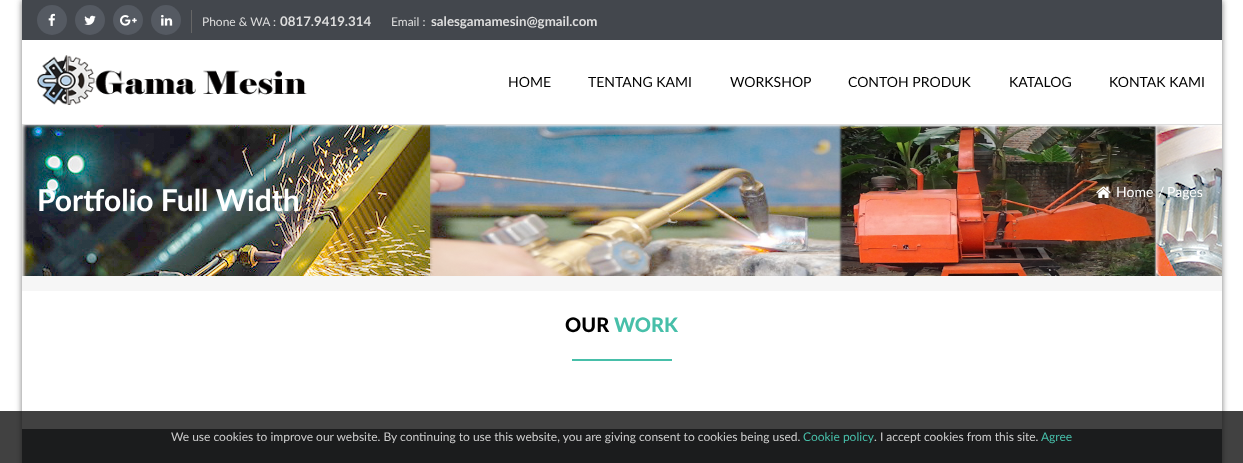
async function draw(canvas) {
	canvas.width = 1243;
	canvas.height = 463;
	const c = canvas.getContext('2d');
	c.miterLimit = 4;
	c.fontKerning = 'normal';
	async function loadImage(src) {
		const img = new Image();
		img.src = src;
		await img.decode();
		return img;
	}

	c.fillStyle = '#fff';
	c.fillRect(0, 0, 1243, 463);
	c.fillStyle = '#777';
	c.filter = 'blur(3px)';
	c.beginPath();
	c.rect(22, 0, 1200, 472);
	c.fill();
	c.filter = 'none';
	c.fillStyle = '#f6f6f6';
	c.fillRect(22, 125, 1200, 166);
	c.fillStyle = '#43474d';
	c.fillRect(22, 0, 1200, 40);
	c.fillStyle = '#555a62';
	c.beginPath();
	c.arc(52, 20, 15, 0, 2 * Math.PI);
	c.fill();
	c.drawImage(await loadImage('img1.png'), 48, 13, 7, 13);
	c.beginPath();
	c.arc(90, 20, 15, 0, 2 * Math.PI);
	c.fill();
	c.drawImage(await loadImage('img2.png'), 84, 15, 12, 10);
	c.beginPath();
	c.arc(128, 20, 15, 0, 2 * Math.PI);
	c.fill();
	c.drawImage(await loadImage('img3.png'), 120, 15, 17, 11);
	c.beginPath();
	c.arc(166, 20, 15, 0, 2 * Math.PI);
	c.fill();
	c.drawImage(await loadImage('img4.png'), 161, 14, 12, 12);
	c.fillStyle = '#666';
	c.fillRect(191, 10, 1, 23);
	c.font = '12px Lato';
	c.fillStyle = '#ddd';
	c.fillText('Phone & WA :', 202, 26);
	c.font = 'bold 13.3px Lato';
	c.fillText('0817.9419.314', 280, 26);
	c.font = '12px Lato';
	c.fillText('Email :', 391, 26);
	c.font = 'bold 13.3px Lato';
	c.fillText('salesgamamesin@gmail.com', 431, 26);
	c.fillStyle = '#fff';
	c.fillRect(22, 40, 1200, 84);
	c.fillStyle = '#ddd';
	c.fillRect(22, 124, 1200, 1);
	c.drawImage(await loadImage('img5.png'), 37, 55, 270, 50);
	c.font = '14px Lato';
	c.fillStyle = '#000';
	for (const [text, x, y] of [
		['HOME', 508, 87],
		['TENTANG KAMI', 588, 87],
		['WORKSHOP', 730, 87],
		['CONTOH PRODUK', 848, 87],
		['KATALOG', 1009, 87],
		['KONTAK KAMI', 1109, 87],
	]) {
		c.fillText(text, x, y);
	}
	c.drawImage(await loadImage('img6.png'), 22, 125, 1200, 151);
	c.font = 'bold 30px Lato';
	c.fillStyle = '#fff';
	c.fillText('Portfolio Full Width', 37, 211);
	c.drawImage(await loadImage('img7.png'), 1096, 186, 15, 12);
	c.font = '14px Lato';
	for (const [text, x, y] of [
		['Home', 1116, 197],
		['/', 1158, 197],
		['Pages', 1167, 197],
	]) {
		c.fillText(text, x, y);
	}
	c.fillRect(22, 291, 1200, 138);
	c.font = '900 20px Lato';
	c.fillStyle = '#000';
	c.fillText('OUR', 565, 332);
	c.fillStyle = '#47bfa9';
	c.fillText('WORK', 614, 332);
	for (const [x, y, w, h, color] of [
		[572, 359, 100, 2, '#47bfa9'],
		[22, 429, 1200, 34, '#43474d'],
		[0, 411, 1243, 52, '#121212cc'],
	]) {
		c.fillStyle = color;
		c.fillRect(x, y, w, h);
	}
	c.font = '12px Lato';
	c.fillStyle = '#ccc';
	c.fillText('We use cookies to improve our website. By continuing to use this website, you are giving consent to cookies being used.', 171, 441);
	c.fillStyle = '#47bfa9';
	c.fillText('Cookie policy', 803, 441);
	c.fillStyle = '#ccc';
	c.fillText('. I accept cookies from this site.', 874, 441);
	c.fillStyle = '#47bfa9';
	c.fillText('Agree', 1041, 441);
}

draw(document.querySelector('canvas'));
